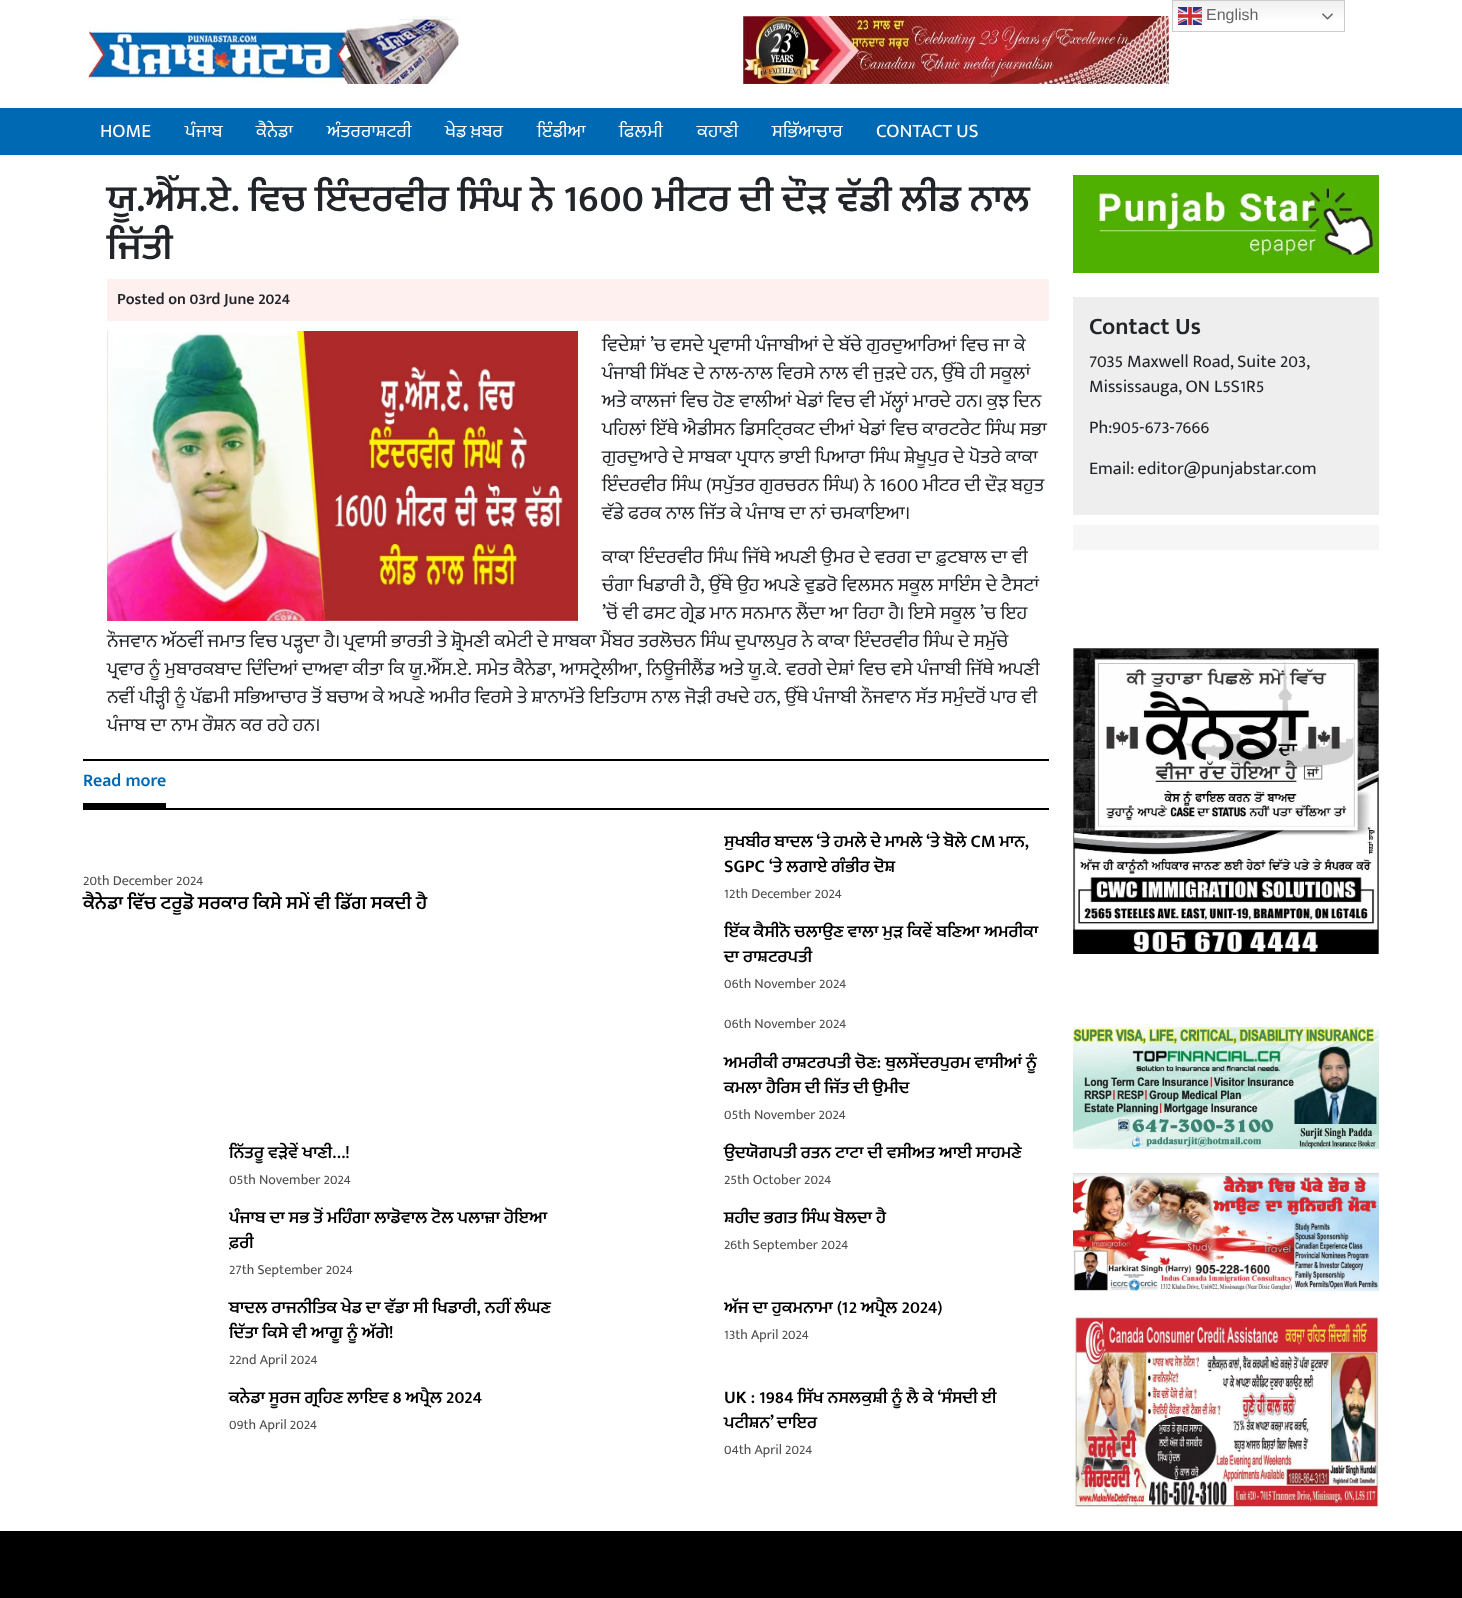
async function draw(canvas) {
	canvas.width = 1462;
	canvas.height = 1598;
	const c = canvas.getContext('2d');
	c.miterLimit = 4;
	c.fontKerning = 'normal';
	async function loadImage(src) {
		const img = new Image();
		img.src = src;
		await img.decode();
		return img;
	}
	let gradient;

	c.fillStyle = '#fff';
	c.fillRect(0, 0, 1462, 1598);
	c.drawImage(await loadImage('img1.png'), 87, 16, 374, 68);
	c.drawImage(await loadImage('img2.png'), 743, 16, 426, 68);
	gradient = c.createLinearGradient(1259, 0, 1259, 32);
	gradient.addColorStop(0, '#efefef');
	gradient.addColorStop(0.7, '#fff');
	c.fillStyle = gradient;
	c.fillRect(1173, 1, 171, 18);
	c.strokeStyle = '#ccc';
	c.strokeRect(1172.5, 0.5, 172, 31);
	c.drawImage(await loadImage('img3.png'), 1178, 7, 24, 18);
	c.font = '16px Liberation Sans';
	c.fillStyle = '#666';
	c.fillText('English', 1206, 20);
	c.drawImage(await loadImage('img4.png'), 1322, 13, 11, 7);
	c.fillStyle = '#0069b4';
	c.fillRect(0, 108, 1462, 47);
	c.font = '19.25px Mukta Mahee';
	c.fillStyle = '#fff';
	for (const [text, x, y] of [
		['HOME', 100, 137],
		['ਪੰਜਾਬ', 185, 137],
		['ਕੈਨੇਡਾ', 256, 137],
		['ਅੰਤਰਰਾਸ਼ਟਰੀ', 327, 137],
		['ਖੇਡ ਖ਼ਬਰ', 445, 137],
		['ਇੰਡੀਆ', 537, 137],
		['ਫਿਲਮੀ', 619, 137],
		['ਕਹਾਣੀ', 697, 137],
		['ਸਭਿੱਆਚਾਰ', 772, 137],
		['CONTACT US', 876, 137],
	]) {
		c.fillText(text, x, y);
	}
	c.font = '600 40px Mukta Mahee';
	c.fillStyle = '#212529';
	c.fillText('ਯੂ.ਐੱਸ.ਏ. ਵਿਚ ਇੰਦਰਵੀਰ ਸਿੰਘ ਨੇ 1600 ਮੀਟਰ ਦੀ ਦੌੜ ਵੱਡੀ ਲੀਡ ਨਾਲ', 107, 211);
	c.fillText('ਜਿੱਤੀ', 107, 259);
	c.fillStyle = '#fff0f0';
	c.fillRect(107, 279, 942, 42);
	c.font = '600 16px Mukta Mahee';
	c.fillStyle = '#212529';
	c.fillText('Posted on 03rd June 2024', 117, 304);
	c.drawImage(await loadImage('img5.png'), 107, 331, 471, 290);
	c.font = '20px Mukta Mahee';
	for (const [text, x, y] of [
		['ਵਿਦੇਸ਼ਾਂ ’ਚ ਵਸਦੇ ਪ੍ਰਵਾਸੀ ਪੰਜਾਬੀਆਂ ਦੇ ਬੱਚੇ ਗੁਰਦੁਆਰਿਆਂ ਵਿਚ ਜਾ ਕੇ', 602, 351],
		['ਪੰਜਾਬੀ ਸਿੱਖਣ ਦੇ ਨਾਲ-ਨਾਲ ਵਿਰਸੇ ਨਾਲ ਵੀ ਜੁੜਦੇ ਹਨ, ਉੱਥੇ ਹੀ ਸਕੂਲਾਂ', 602, 379],
		['ਅਤੇ ਕਾਲਜਾਂ ਵਿਚ ਹੋਣ ਵਾਲੀਆਂ ਖੇਡਾਂ ਵਿਚ ਵੀ ਮੱਲ੍ਹਾਂ ਮਾਰਦੇ ਹਨ। ਕੁਝ ਦਿਨ', 602, 407],
		['ਪਹਿਲਾਂ ਇੱਥੇ ਐਡੀਸਨ ਡਿਸਟਿ੍ਰਕਟ ਦੀਆਂ ਖੇਡਾਂ ਵਿਚ ਕਾਰਟਰੇਟ ਸਿੰਘ ਸਭਾ', 602, 435],
		['ਗੁਰਦੁਆਰੇ ਦੇ ਸਾਬਕਾ ਪ੍ਰਧਾਨ ਭਾਈ ਪਿਆਰਾ ਸਿੰਘ ਸ਼ੇਖੂਪੁਰ ਦੇ ਪੋਤਰੇ ਕਾਕਾ', 602, 463],
		['ਇੰਦਰਵੀਰ ਸਿੰਘ (ਸਪੁੱਤਰ ਗੁਰਚਰਨ ਸਿੰਘ) ਨੇ 1600 ਮੀਟਰ ਦੀ ਦੌੜ ਬਹੁਤ', 602, 491],
		['ਵੱਡੇ ਫਰਕ ਨਾਲ ਜਿੱਤ ਕੇ ਪੰਜਾਬ ਦਾ ਨਾਂ ਚਮਕਾਇਆ।', 602, 519],
		['ਕਾਕਾ ਇੰਦਰਵੀਰ ਸਿੰਘ ਜਿੱਥੇ ਅਪਣੀ ਉਮਰ ਦੇ ਵਰਗ ਦਾ ਫ਼ੁਟਬਾਲ ਦਾ ਵੀ', 602, 563],
		['ਚੰਗਾ ਖਿਡਾਰੀ ਹੈ, ਉੱਥੇ ਉਹ ਅਪਣੇ ਵੁਡਰੋ ਵਿਲਸਨ ਸਕੂਲ ਸਾਇੰਸ ਦੇ ਟੈਸਟਾਂ', 602, 591],
		['’ਚੋਂ ਵੀ ਫਸਟ ਗ੍ਰੇਡ ਮਾਨ ਸਨਮਾਨ ਲੈਂਦਾ ਆ ਰਿਹਾ ਹੈ। ਇਸੇ ਸਕੂਲ ’ਚ ਇਹ', 602, 619],
		['ਨੌਜਵਾਨ ਅੱਠਵੀਂ ਜਮਾਤ ਵਿਚ ਪੜ੍ਹਦਾ ਹੈ। ਪ੍ਰਵਾਸੀ ਭਾਰਤੀ ਤੇ ਸ਼੍ਰੋਮਣੀ ਕਮੇਟੀ ਦੇ ਸਾਬਕਾ ਮੈਂਬਰ ਤਰਲੋਚਨ ਸਿੰਘ ਦੁਪਾਲਪੁਰ ਨੇ ਕਾਕਾ ਇੰਦਰਵੀਰ ਸਿੰਘ ਦੇ ਸਮੁੱਚੇ', 107, 647],
		['ਪ੍ਰਵਾਰ ਨੂੰ ਮੁਬਾਰਕਬਾਦ ਦਿੰਦਿਆਂ ਦਾਅਵਾ ਕੀਤਾ ਕਿ ਯੂ.ਐੱਸ.ਏ. ਸਮੇਤ ਕੈਨੇਡਾ, ਆਸਟ੍ਰੇਲੀਆ, ਨਿਊਜੀਲੈਂਡ ਅਤੇ ਯੂ.ਕੇ. ਵਰਗੇ ਦੇਸ਼ਾਂ ਵਿਚ ਵਸੇ ਪੰਜਾਬੀ ਜਿੱਥੇ ਅਪਣੀ', 107, 675],
		['ਨਵੀਂ ਪੀੜ੍ਹੀ ਨੂੰ ਪੱਛਮੀ ਸਭਿਆਚਾਰ ਤੋਂ ਬਚਾਅ ਕੇ ਅਪਣੇ ਅਮੀਰ ਵਿਰਸੇ ਤੇ ਸ਼ਾਨਾਮੱਤੇ ਇਤਿਹਾਸ ਨਾਲ ਜੋੜੀ ਰਖਦੇ ਹਨ, ਉੱਥੇ ਪੰਜਾਬੀ ਨੌਜਵਾਨ ਸੱਤ ਸਮੁੰਦਰੋਂ ਪਾਰ ਵੀ', 107, 703],
		['ਪੰਜਾਬ ਦਾ ਨਾਮ ਰੌਸ਼ਨ ਕਰ ਰਹੇ ਹਨ।', 107, 731],
	]) {
		c.fillText(text, x, y);
	}
	for (const [x, y, w, h, color] of [
		[83, 759, 966, 2, '#000'],
		[83, 808, 966, 2, '#000'],
		[83, 803, 83, 5, '#000'],
	]) {
		c.fillStyle = color;
		c.fillRect(x, y, w, h);
	}
	c.font = '600 18px Mukta Mahee';
	c.fillStyle = '#0069b4';
	c.fillText('Read more', 83, 786);
	c.font = '14px Mukta Mahee';
	c.fillStyle = '#4d4d4d';
	c.fillText('20th December 2024', 83, 885);
	c.font = '600 20px Mukta Mahee';
	c.fillStyle = '#000';
	c.fillText('ਕੈਨੇਡਾ ਵਿੱਚ ਟਰੂਡੋ ਸਰਕਾਰ ਕਿਸੇ ਸਮੇਂ ਵੀ ਡਿੱਗ ਸਕਦੀ ਹੈ', 83, 909);
	c.save();
	c.beginPath();
	c.rect(724, 830, 325, 50);
	c.clip();
	c.wordSpacing = '-0.25px';
	c.font = '600 18px Mukta Mahee';
	c.fillText('ਸੁਖਬੀਰ ਬਾਦਲ ‘ਤੇ ਹਮਲੇ ਦੇ ਮਾਮਲੇ ‘ਤੇ ਬੋਲੇ CM ਮਾਨ,', 724, 847);
	c.restore();
	c.font = '600 18px Mukta Mahee';
	c.fillText('SGPC ‘ਤੇ ਲਗਾਏ ਗੰਭੀਰ ਦੋਸ਼', 724, 872);
	c.font = '14px Mukta Mahee';
	c.fillStyle = '#4d4d4d';
	c.fillText('12th December 2024', 724, 898);
	c.save();
	c.beginPath();
	c.rect(724, 920, 325, 50);
	c.clip();
	c.font = '600 18px Mukta Mahee';
	c.fillStyle = '#000';
	c.fillText('ਇੱਕ ਕੈਸੀਨੋ ਚਲਾਉਣ ਵਾਲਾ ਮੁੜ ਕਿਵੇਂ ਬਣਿਆ ਅਮਰੀਕਾ', 724, 937);
	c.restore();
	c.font = '600 18px Mukta Mahee';
	c.fillStyle = '#000';
	c.fillText('ਦਾ ਰਾਸ਼ਟਰਪਤੀ', 724, 962);
	c.font = '14px Mukta Mahee';
	c.fillStyle = '#4d4d4d';
	c.fillText('06th November 2024', 724, 988);
	c.fillText('06th November 2024', 724, 1028);
	c.font = '600 18px Mukta Mahee';
	c.fillStyle = '#000';
	c.fillText('ਅਮਰੀਕੀ ਰਾਸ਼ਟਰਪਤੀ ਚੋਣ: ਥੁਲਸੇਂਦਰਪੁਰਮ ਵਾਸੀਆਂ ਨੂੰ', 724, 1068);
	c.fillText('ਕਮਲਾ ਹੈਰਿਸ ਦੀ ਜਿੱਤ ਦੀ ਉਮੀਦ', 724, 1093);
	c.font = '14px Mukta Mahee';
	c.fillStyle = '#4d4d4d';
	c.fillText('05th November 2024', 724, 1119);
	c.save();
	c.beginPath();
	c.rect(229, 1141, 325, 25);
	c.clip();
	c.font = '600 18px Mukta Mahee';
	c.fillStyle = '#000';
	c.fillText('ਨਿੱਤਰੂ ਵੜੇਵੇਂ ਖਾਣੀ…!', 229, 1158);
	c.restore();
	c.fillText('05th November 2024', 229, 1184);
	c.font = '600 18px Mukta Mahee';
	c.fillStyle = '#000';
	c.fillText('ਉਦਯੋਗਪਤੀ ਰਤਨ ਟਾਟਾ ਦੀ ਵਸੀਅਤ ਆਈ ਸਾਹਮਣੇ', 724, 1158);
	c.font = '14px Mukta Mahee';
	c.fillStyle = '#4d4d4d';
	c.fillText('25th October 2024', 724, 1184);
	c.save();
	c.beginPath();
	c.rect(229, 1206, 325, 50);
	c.clip();
	c.font = '600 18px Mukta Mahee';
	c.fillStyle = '#000';
	c.fillText('ਪੰਜਾਬ ਦਾ ਸਭ ਤੋਂ ਮਹਿੰਗਾ ਲਾਡੋਵਾਲ ਟੋਲ ਪਲਾਜ਼ਾ ਹੋਇਆ', 229, 1223);
	c.fillText('ਫ਼ਰੀ', 229, 1248);
	c.restore();
	c.fillText('27th September 2024', 229, 1274);
	c.font = '600 18px Mukta Mahee';
	c.fillStyle = '#000';
	c.fillText('ਸ਼ਹੀਦ ਭਗਤ ਸਿੰਘ ਬੋਲਦਾ ਹੈ', 724, 1223);
	c.font = '14px Mukta Mahee';
	c.fillStyle = '#4d4d4d';
	c.fillText('26th September 2024', 724, 1249);
	c.font = '600 18px Mukta Mahee';
	c.fillStyle = '#000';
	c.fillText('ਬਾਦਲ ਰਾਜਨੀਤਿਕ ਖੇਡ ਦਾ ਵੱਡਾ ਸੀ ਖਿਡਾਰੀ, ਨਹੀਂ ਲੰਘਣ', 229, 1313);
	c.save();
	c.beginPath();
	c.rect(229, 1296, 325, 50);
	c.clip();
	c.fillText('ਦਿੱਤਾ ਕਿਸੇ ਵੀ ਆਗੂ ਨੂੰ ਅੱਗੇ!', 229, 1338);
	c.restore();
	c.font = '14px Mukta Mahee';
	c.fillStyle = '#4d4d4d';
	c.fillText('22nd April 2024', 229, 1364);
	c.save();
	c.beginPath();
	c.rect(724, 1296, 325, 25);
	c.clip();
	c.font = '600 18px Mukta Mahee';
	c.fillStyle = '#000';
	c.fillText('ਅੱਜ ਦਾ ਹੁਕਮਨਾਮਾ (12 ਅਪ੍ਰੈਲ 2024)', 724, 1313);
	c.restore();
	c.fillText('13th April 2024', 724, 1339);
	c.font = '600 18px Mukta Mahee';
	c.fillStyle = '#000';
	c.fillText('ਕਨੇਡਾ ਸੂਰਜ ਗ੍ਰਹਿਣ ਲਾਇਵ 8 ਅਪ੍ਰੈਲ 2024', 229, 1403);
	c.font = '14px Mukta Mahee';
	c.fillStyle = '#4d4d4d';
	c.fillText('09th April 2024', 229, 1429);
	c.font = '600 18px Mukta Mahee';
	c.fillStyle = '#000';
	c.fillText('UK : 1984 ਸਿੱਖ ਨਸਲਕੁਸ਼ੀ ਨੂੰ ਲੈ ਕੇ ‘ਸੰਸਦੀ ਈ', 724, 1403);
	c.wordSpacing = '-1px';
	c.fillText('ਪਟੀਸ਼ਨ’ ਦਾਇਰ', 724, 1428);
	c.wordSpacing = '0px';
	c.font = '14px Mukta Mahee';
	c.fillStyle = '#4d4d4d';
	c.fillText('04th April 2024', 724, 1454);
	c.drawImage(await loadImage('img6.png'), 1073, 175, 306, 98);
	c.fillStyle = '#eee';
	c.fillRect(1073, 297, 306, 218);
	c.font = '600 24px Mukta Mahee';
	c.fillStyle = '#212529';
	c.fillText('Contact Us', 1089, 334);
	c.font = '18px Mukta Mahee';
	for (const [text, x, y] of [
		['7035 Maxwell Road, Suite 203,', 1089, 367],
		['Mississauga, ON L5S1R5', 1089, 392],
		['Ph:905-673-7666', 1089, 433],
		['Email: editor@punjabstar.com', 1089, 474],
	]) {
		c.fillText(text, x, y);
	}
	c.fillStyle = '#f6f6f6';
	c.fillRect(1073, 525, 306, 25);
	c.drawImage(await loadImage('img7.png'), 1073, 648, 306, 306);
	c.drawImage(await loadImage('img8.png'), 1073, 1027, 306, 122);
	c.drawImage(await loadImage('img9.png'), 1073, 1173, 306, 118);
	c.drawImage(await loadImage('img10.png'), 1073, 1315, 306, 192);
	c.fillStyle = '#000';
	c.fillRect(0, 1531, 1462, 67);
}

draw(document.querySelector('canvas'));
